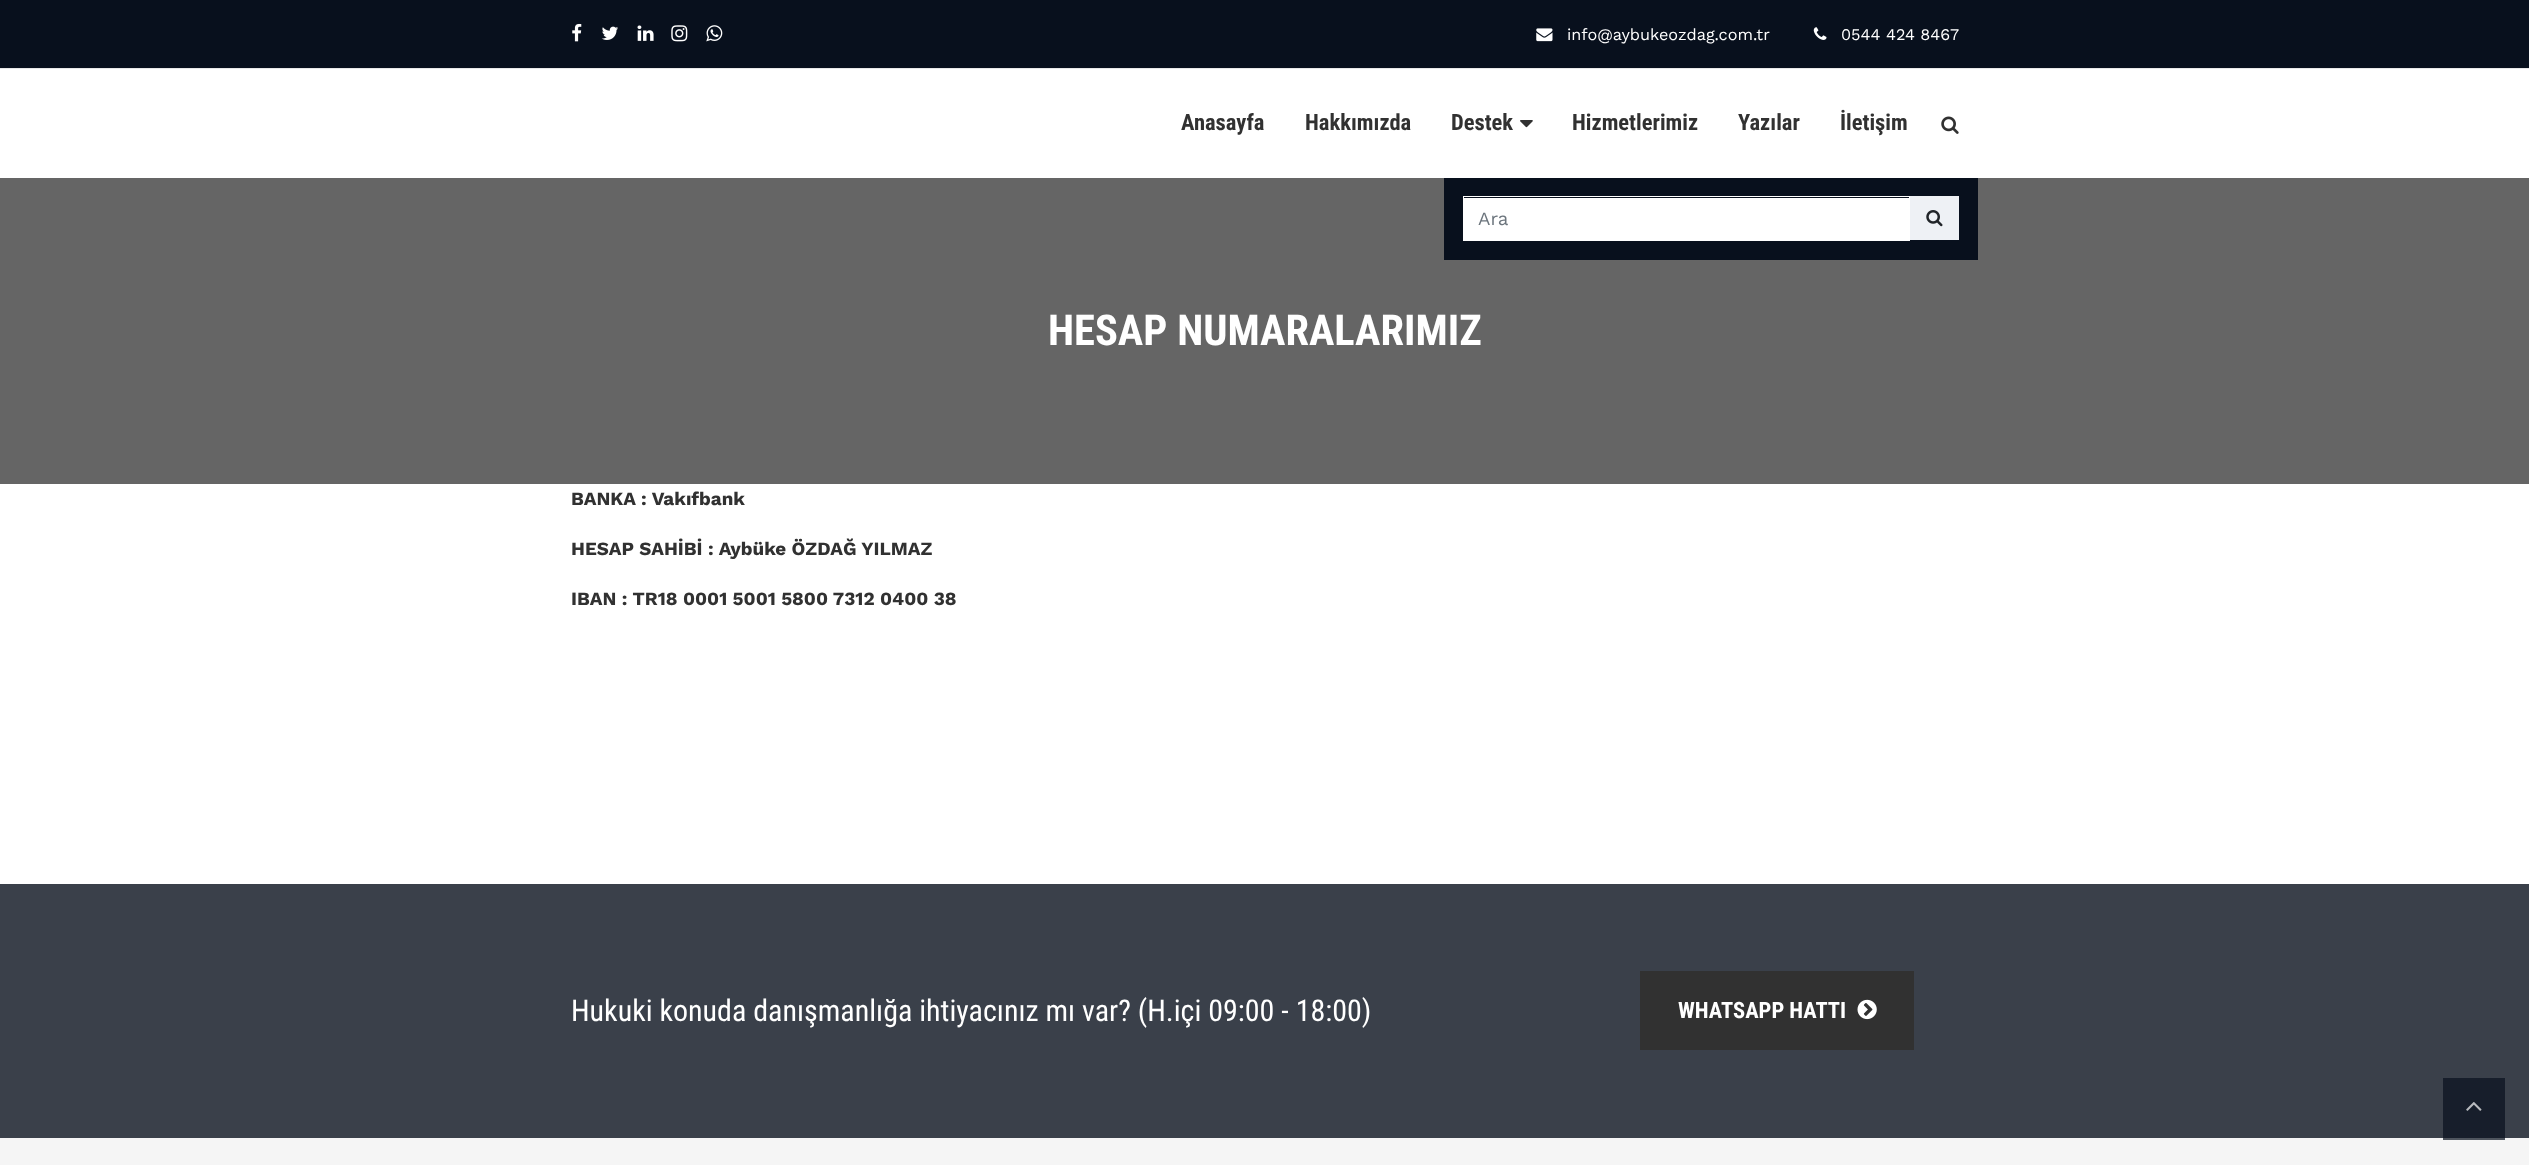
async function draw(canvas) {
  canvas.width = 2529;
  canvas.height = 1165;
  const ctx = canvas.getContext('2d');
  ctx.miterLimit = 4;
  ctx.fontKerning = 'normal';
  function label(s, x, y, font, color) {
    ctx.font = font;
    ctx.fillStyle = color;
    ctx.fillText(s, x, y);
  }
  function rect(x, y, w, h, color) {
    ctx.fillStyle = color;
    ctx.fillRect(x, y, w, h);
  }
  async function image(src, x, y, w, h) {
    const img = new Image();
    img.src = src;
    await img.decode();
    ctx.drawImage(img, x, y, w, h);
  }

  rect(0, 0, 2529, 1165, '#fff');
  rect(0, 0, 2529, 68, '#08101d');
  rect(0, 68, 2529, 1, '#e8e8e8');
  await image('assets/img1.png', 572, 23, 10, 19);
  await image('assets/img2.png', 601, 26, 17, 14);
  await image('assets/img3.png', 637, 25, 17, 16);
  await image('assets/img4.png', 671, 25, 17, 17);
  await image('assets/img5.png', 706, 25, 17, 17);
  await image('assets/img6.png', 1536, 28, 17, 14);
  label('info@aybukeozdag.com.tr', 1567, 40, '16.25px Work Sans', '#fff');
  await image('assets/img7.png', 1813, 27, 14, 13);
  label('0544 424 8467', 1841, 40, '16.25px Work Sans', '#fff');
  label('Anasayfa', 1181, 130, 'bold 22.5px Roboto Condensed', '#313131');
  label('Hakkımızda', 1305, 130, 'bold 22.5px Roboto Condensed', '#313131');
  label('Destek', 1451, 130, 'bold 22.5px Roboto Condensed', '#313131');
  await image('assets/img8.png', 1520, 120, 13, 8);
  label('Hizmetlerimiz', 1572, 130, 'bold 22.5px Roboto Condensed', '#313131');
  label('Yazılar', 1738, 130, 'bold 22.5px Roboto Condensed', '#313131');
  label('İletişim', 1840, 130, 'bold 22.5px Roboto Condensed', '#313131');
  await image('assets/img9.png', 1941, 116, 18, 18);
  rect(0, 178, 2529, 306, '#656565');
  rect(1444, 178, 534, 82, '#08101d');
  rect(1464, 198, 445, 42, '#fff');
  ctx.strokeStyle = '#fff';
  ctx.strokeRect(1463.5, 196.5, 446, 44);
  label('Ara', 1478, 225, '18.75px Work Sans', '#6c757d');
  rect(1910, 196, 49, 44, '#eef1f5');
  await image('assets/img10.png', 1926, 210, 17, 17);
  label('HESAP NUMARALARIMIZ', 1048, 345, 'bold 42.5px Roboto Condensed', '#fff');
  label('BANKA : Vakıfbank', 571, 505, 'bold 18.75px Work Sans', '#313131');
  label('HESAP SAHİBİ : Aybüke ÖZDAĞ YILMAZ', 571, 555, 'bold 18.75px Work Sans', '#313131');
  label('IBAN : TR18 0001 5001 5800 7312 0400 38', 571, 605, 'bold 18.75px Work Sans', '#313131');
  rect(0, 884, 2529, 254, '#3a404a');
  rect(2443, 1078, 62, 60, '#171e2b');
  label('Hukuki konuda danışmanlığa ihtiyacınız mı var? (H.içi 09:00 - 18:00)', 571, 1021, '30px Roboto Condensed', '#fff');
  rect(1640, 971, 274, 79, '#313131');
  label('WHATSAPP HATTI', 1678, 1018, 'bold 22.5px Roboto Condensed', '#fff');
  await image('assets/img11.png', 1857, 999, 20, 21);
  await image('assets/img12.png', 2466, 1102, 16, 9);
  rect(0, 1138, 2529, 27, '#f5f5f5');
  rect(2443, 1138, 62, 2, '#4f555e');
}

draw(document.querySelector('canvas'));
